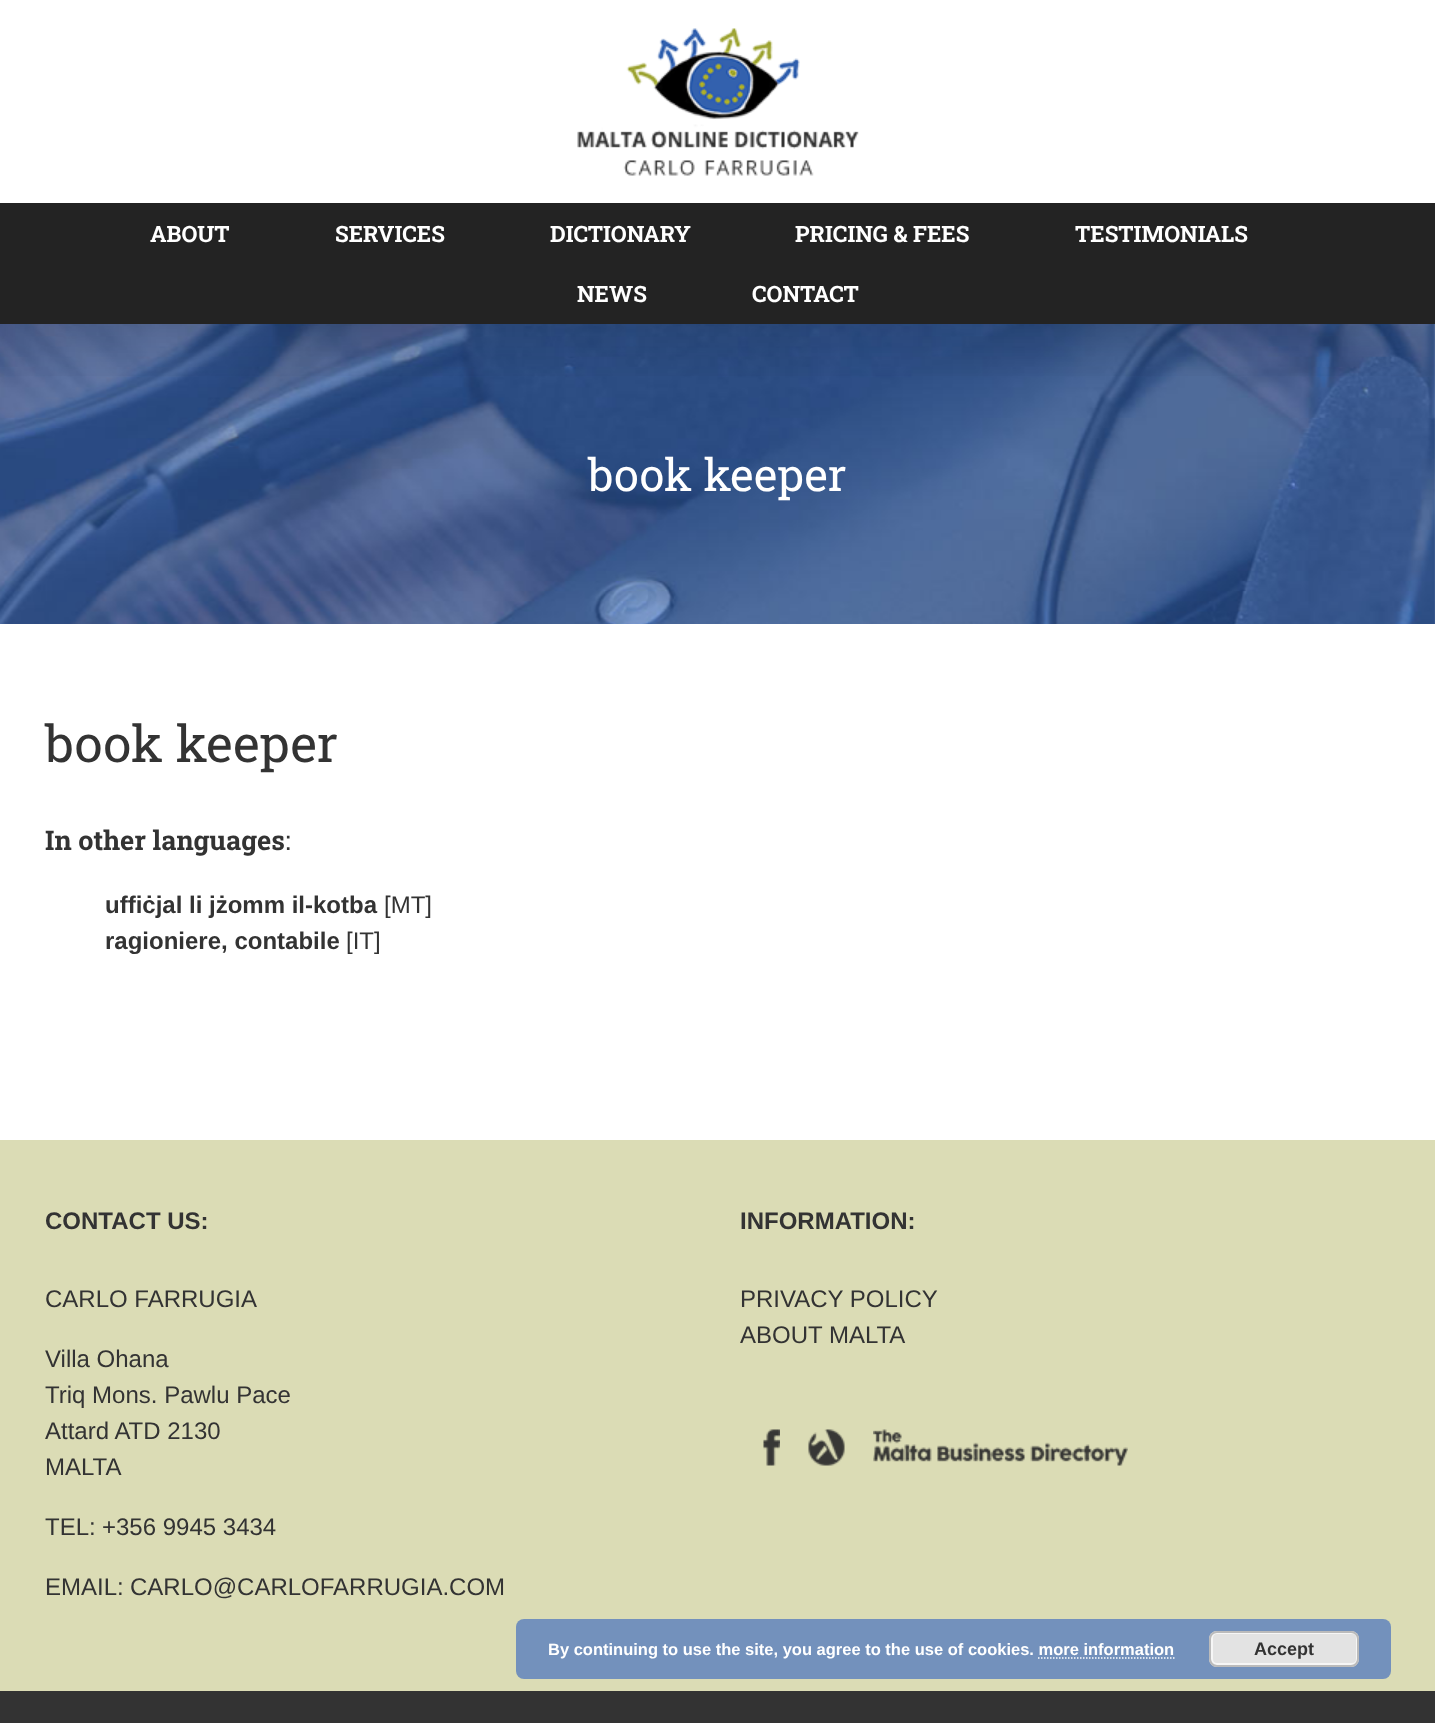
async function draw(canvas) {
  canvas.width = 1435;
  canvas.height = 1723;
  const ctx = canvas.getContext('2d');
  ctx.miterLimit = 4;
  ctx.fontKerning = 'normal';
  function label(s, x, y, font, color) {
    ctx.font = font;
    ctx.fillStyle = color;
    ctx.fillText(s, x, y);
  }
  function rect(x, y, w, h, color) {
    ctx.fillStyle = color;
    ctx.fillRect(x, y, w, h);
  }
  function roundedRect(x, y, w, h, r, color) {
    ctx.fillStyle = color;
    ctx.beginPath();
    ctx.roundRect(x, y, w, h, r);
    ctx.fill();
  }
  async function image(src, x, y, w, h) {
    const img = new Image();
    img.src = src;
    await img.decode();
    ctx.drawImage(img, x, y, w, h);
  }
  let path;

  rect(0, 0, 1435, 1723, '#fff');
  await image('assets/img2.png', 0, 324, 1435, 300);
  ctx.save();
  ctx.beginPath();
  ctx.rect(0, 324, 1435, 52);
  ctx.clip();
  ctx.fillStyle = '#00000024';
  ctx.filter = 'blur(37.5px)';
  ctx.beginPath();
  ctx.rect(3, 18, 1430, 318);
  ctx.fill();
  ctx.filter = 'none';
  ctx.restore();
  await image('assets/img1.png', 577, 28, 282, 148);
  rect(0, 203, 1435, 121, '#232323');
  label('ABOUT', 150, 242, 'bold 22.5px Roboto Slab', '#fff');
  label('SERVICES', 335, 242, 'bold 22.5px Roboto Slab', '#fff');
  label('DICTIONARY', 550, 242, 'bold 22.5px Roboto Slab', '#fff');
  label('PRICING & FEES', 795, 242, 'bold 22.5px Roboto Slab', '#fff');
  label('TESTIMONIALS', 1075, 242, 'bold 22.5px Roboto Slab', '#fff');
  label('NEWS', 577, 302, 'bold 22.5px Roboto Slab', '#fff');
  label('CONTACT', 752, 302, 'bold 22.5px Roboto Slab', '#fff');
  label('book keeper', 588, 491, '45px Roboto Slab', '#fff');
  label('book keeper', 45, 762, '51px Roboto Slab', '#333');
  label('In other languages', 45, 850, 'bold 27px Roboto Slab', '#333');
  label(':', 285, 850, '27px Roboto Slab', '#333');
  label('uffiċjal li jżomm il-kotba', 105, 913, 'bold 24px Liberation Sans', '#333');
  label('[MT]', 384, 913, '24px Liberation Sans', '#333');
  label('ragioniere, contabile', 105, 949, 'bold 24px Liberation Sans', '#333');
  label('[IT]', 346, 949, '24px Liberation Sans', '#333');
  rect(0, 1140, 1435, 551, '#dbdcb5');
  label('CONTACT US:', 45, 1229, 'bold 24px Liberation Sans', '#333');
  label('CARLO FARRUGIA', 45, 1307, '24px Liberation Sans', '#333');
  label('Villa Ohana', 45, 1367, '24px Liberation Sans', '#333');
  label('Triq Mons. Pawlu Pace', 45, 1403, '24px Liberation Sans', '#333');
  label('Attard ATD 2130', 45, 1439, '24px Liberation Sans', '#333');
  label('MALTA', 45, 1475, '24px Liberation Sans', '#333');
  label('TEL:', 45, 1535, '24px Liberation Sans', '#333');
  label('+356 9945 3434', 102, 1535, '24px Liberation Sans', '#333');
  label('EMAIL:', 45, 1595, '24px Liberation Sans', '#333');
  label('CARLO@CARLOFARRUGIA.COM', 130, 1595, '24px Liberation Sans', '#333');
  label('INFORMATION:', 740, 1229, 'bold 24px Liberation Sans', '#333');
  label('PRIVACY POLICY', 740, 1307, '24px Liberation Sans', '#333');
  label('ABOUT MALTA', 740, 1343, '24px Liberation Sans', '#333');
  await image('assets/img3.png', 763, 1429, 17, 37);
  await image('assets/img4.png', 808, 1429, 37, 37);
  await image('assets/img5.png', 873, 1429, 255, 37);
  rect(0, 1691, 1435, 32, '#333');
  roundedRect(516, 1619, 875, 60, 8, '#7391bc');
  label('By continuing to use the site, you agree to the use of cookies. more information', 548, 1655, 'bold 16.5px Liberation Sans', '#fff');
  roundedRect(1209, 1631, 150, 36, 8, '#e3e3e3');
  ctx.beginPath();
  ctx.roundRect(1212, 1633, 145, 31, 5);
  ctx.strokeStyle = '#f6f6f6';
  ctx.lineWidth = 2;
  ctx.stroke();
  ctx.beginPath();
  ctx.roundRect(1210, 1632, 148, 34, 7);
  ctx.strokeStyle = '#bbb';
  ctx.stroke();
  label('Accept', 1254, 1655, 'bold 18px Liberation Sans', '#333');
  path = new Path2D('M1038 1658H1174.5');
  ctx.strokeStyle = '#fff';
  ctx.lineWidth = 1.5;
  ctx.setLineDash([1.5, 1.5]);
  ctx.stroke(path);
}

draw(document.querySelector('canvas'));
